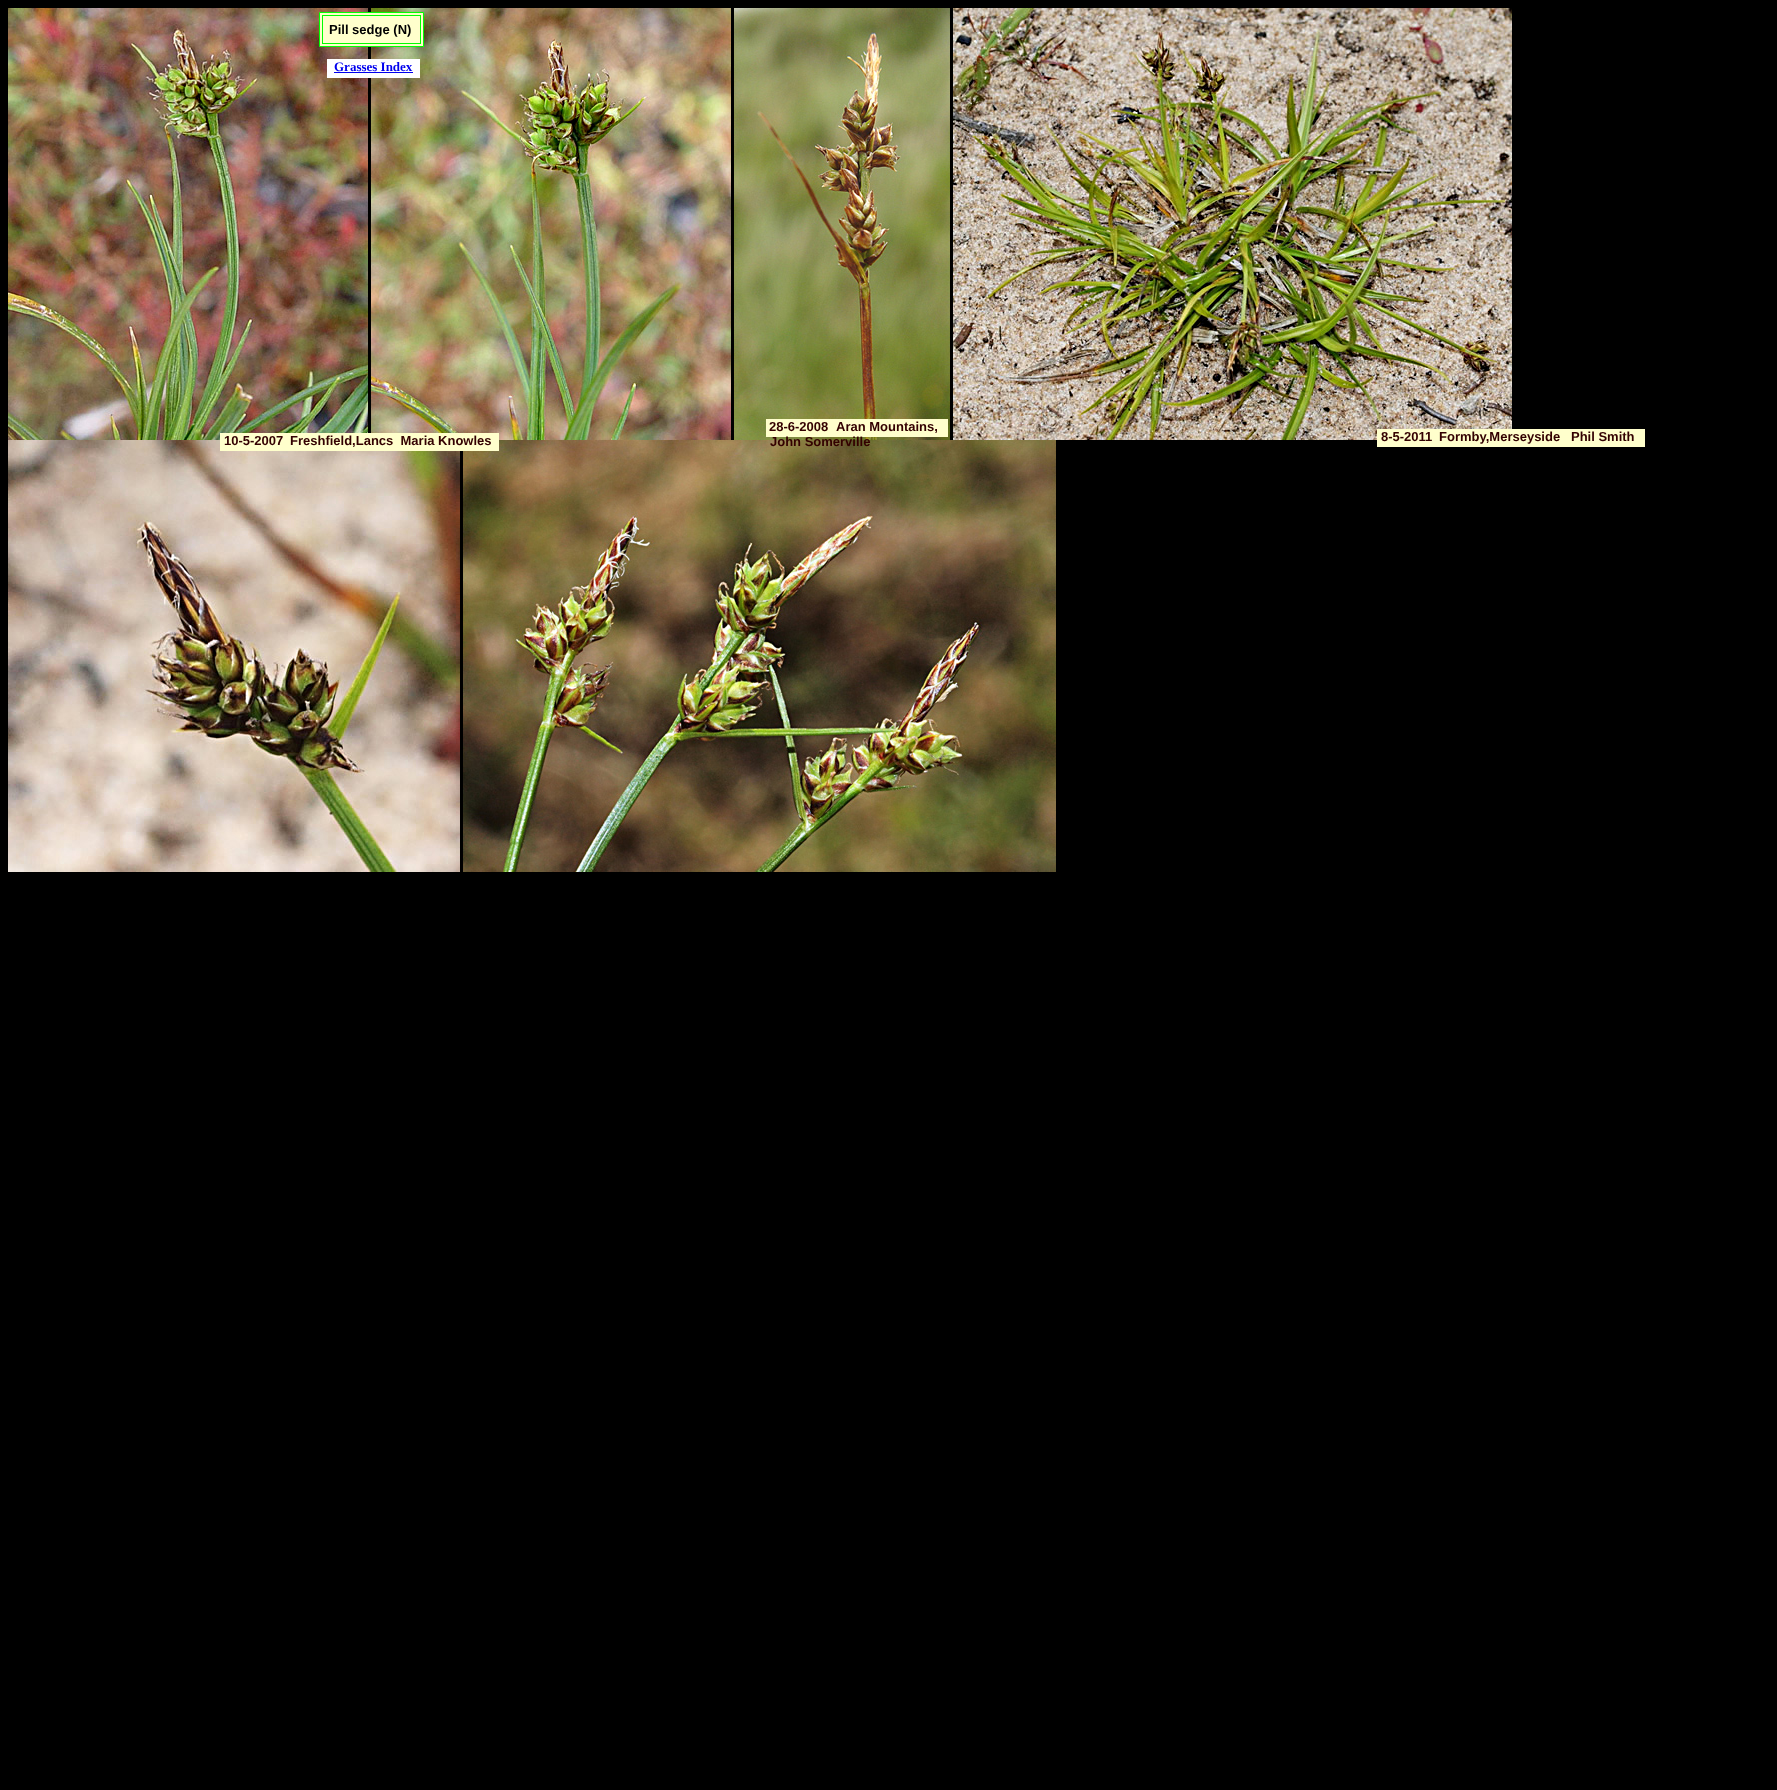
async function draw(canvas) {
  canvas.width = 1777;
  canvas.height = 1790;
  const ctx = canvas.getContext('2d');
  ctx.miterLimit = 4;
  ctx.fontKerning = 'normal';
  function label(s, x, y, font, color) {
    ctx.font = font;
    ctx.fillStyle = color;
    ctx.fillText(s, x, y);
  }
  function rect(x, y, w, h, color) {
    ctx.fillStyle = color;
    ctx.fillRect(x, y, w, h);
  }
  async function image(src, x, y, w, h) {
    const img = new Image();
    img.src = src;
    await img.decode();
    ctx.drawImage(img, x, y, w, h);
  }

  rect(0, 0, 1777, 1790, '#000');
  await image('assets/img1.png', 8, 8, 360, 432);
  await image('assets/img2.png', 371, 8, 360, 432);
  ctx.fillStyle = '#ffc';
  ctx.beginPath();
  ctx.rect(319.5, 12.5, 104, 34);
  ctx.fill();
  ctx.strokeStyle = '#0f0';
  ctx.stroke();
  ctx.strokeRect(322.5, 15.5, 98, 28);
  label('Pill sedge (N)', 329, 34, 'bold 13px Liberation Sans', '#000');
  await image('assets/img3.png', 734, 8, 216, 432);
  await image('assets/img4.png', 953, 8, 559, 432);
  rect(327, 59, 93, 19, '#fff');
  label('Grasses Index', 334, 71, 'bold 13px Liberation Serif', '#00e');
  rect(334, 72, 79, 1, '#00e');
  await image('assets/img5.png', 8, 440, 452, 432);
  await image('assets/img6.png', 463, 440, 593, 432);
  rect(220, 433, 279, 18, '#ffc');
  label('10-5-2007', 224, 445, 'bold 13px Liberation Sans', '#300');
  label('Freshfield,Lancs  Maria Knowles', 290, 445, 'bold 13px Liberation Sans', '#300');
  rect(766, 419, 182, 18, '#ffc');
  label('28-6-2008', 769, 431, 'bold 13px Liberation Sans', '#300');
  label('Aran Mountains,', 836, 431, 'bold 13px Liberation Sans', '#300');
  label('John Somerville', 770, 446, 'bold 13px Liberation Sans', '#300');
  rect(1377, 429, 268, 18, '#ffc');
  label('8-5-2011', 1381, 441, 'bold 13px Liberation Sans', '#300');
  label('Formby,Merseyside   Phil Smith', 1439, 441, 'bold 13px Liberation Sans', '#300');
}

draw(document.querySelector('canvas'));
